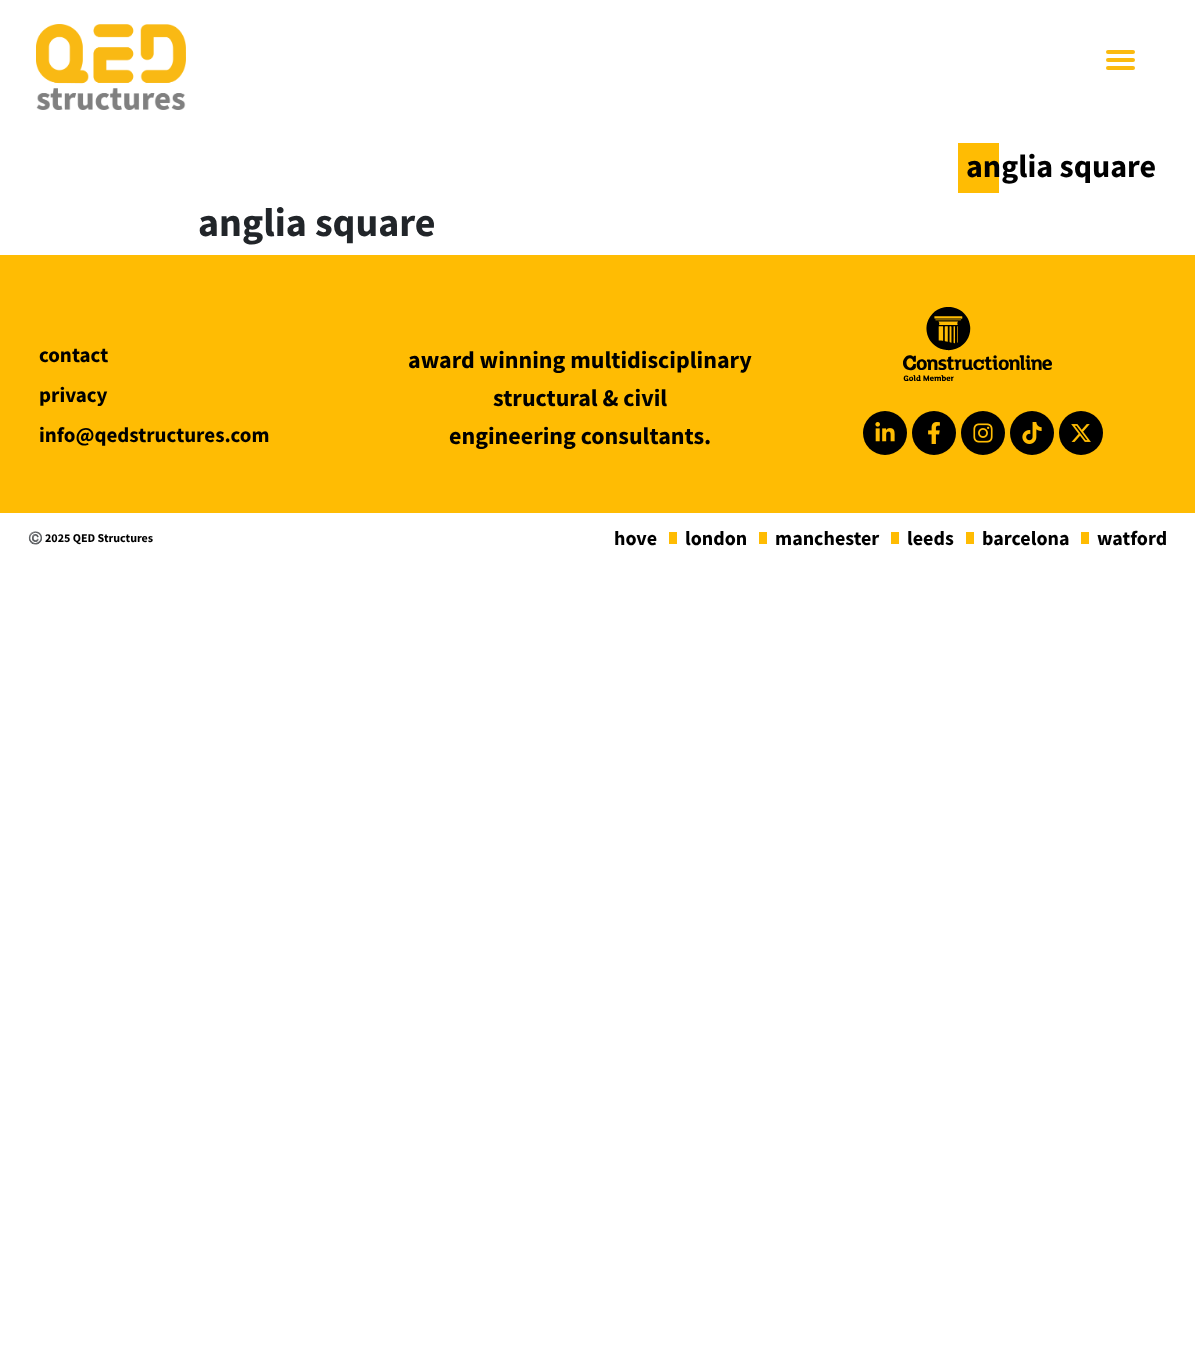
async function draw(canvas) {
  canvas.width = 1195;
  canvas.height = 1346;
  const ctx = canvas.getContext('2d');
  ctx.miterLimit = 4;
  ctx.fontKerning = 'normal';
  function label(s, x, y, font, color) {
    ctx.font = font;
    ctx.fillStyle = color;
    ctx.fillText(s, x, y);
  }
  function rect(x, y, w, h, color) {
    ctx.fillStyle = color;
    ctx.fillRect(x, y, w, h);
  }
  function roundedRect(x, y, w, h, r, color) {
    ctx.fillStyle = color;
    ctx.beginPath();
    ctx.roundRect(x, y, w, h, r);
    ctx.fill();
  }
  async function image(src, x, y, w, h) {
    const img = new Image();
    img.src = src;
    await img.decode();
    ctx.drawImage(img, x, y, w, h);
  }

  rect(0, 0, 1195, 1346, '#fff');
  await image('assets/img1.png', 36, 24, 150, 86);
  roundedRect(1106, 50, 29, 4, 2, '#fbba0f');
  roundedRect(1106, 58, 29, 4, 2, '#fbba0f');
  roundedRect(1106, 66, 29, 4, 2, '#fbba0f');
  rect(958, 143, 41, 50, '#ffbc03');
  label('anglia square', 966, 177, 'bold 32px Source Sans Pro', '#000');
  label('anglia square', 198, 236, 'bold 40px Source Sans Pro', '#212529');
  rect(0, 255, 1195, 258, '#ffbc03');
  label('contact', 39, 362, 'bold 21px Source Sans Pro', '#000');
  label('privacy', 39, 402, 'bold 21px Source Sans Pro', '#000');
  label('info@qedstructures.com', 39, 442, 'bold 21px Source Sans Pro', '#000');
  label('award winning multidisciplinary', 408, 368, 'bold 24px Source Sans Pro', '#000');
  label('structural & civil', 493, 406, 'bold 24px Source Sans Pro', '#000');
  label('engineering consultants.', 449, 444, 'bold 24px Source Sans Pro', '#000');
  await image('assets/img2.png', 903, 307, 149, 74);
  ctx.beginPath();
  ctx.arc(885, 433, 22, 0, 2 * Math.PI);
  ctx.fill();
  await image('assets/img3.png', 875, 422, 20, 20);
  ctx.beginPath();
  ctx.arc(934, 433, 22, 0, 2 * Math.PI);
  ctx.fill();
  await image('assets/img4.png', 928, 422, 12, 22);
  ctx.beginPath();
  ctx.arc(983, 433, 22, 0, 2 * Math.PI);
  ctx.fill();
  await image('assets/img5.png', 973, 423, 20, 20);
  ctx.beginPath();
  ctx.arc(1032, 433, 22, 0, 2 * Math.PI);
  ctx.fill();
  await image('assets/img6.png', 1022, 422, 20, 22);
  ctx.beginPath();
  ctx.arc(1081, 433, 22, 0, 2 * Math.PI);
  ctx.fill();
  await image('assets/img7.png', 1071, 424, 20, 18);
  label('©️', 28, 542, 'bold 12px Noto Color Emoji', '#000');
  label('2025 QED Structures', 45, 542, 'bold 12px Source Sans Pro', '#000');
  label('hove', 614, 545, 'bold 20px Source Sans Pro', '#000');
  rect(669, 532, 8, 12, '#ffbc03');
  label('london', 685, 545, 'bold 20px Source Sans Pro', '#000');
  rect(759, 532, 8, 12, '#ffbc03');
  label('manchester', 775, 545, 'bold 20px Source Sans Pro', '#000');
  rect(891, 532, 8, 12, '#ffbc03');
  label('leeds', 907, 545, 'bold 20px Source Sans Pro', '#000');
  rect(966, 532, 8, 12, '#ffbc03');
  label('barcelona', 982, 545, 'bold 20px Source Sans Pro', '#000');
  rect(1081, 532, 8, 12, '#ffbc03');
  label('watford', 1097, 545, 'bold 20px Source Sans Pro', '#000');
}

draw(document.querySelector('canvas'));
